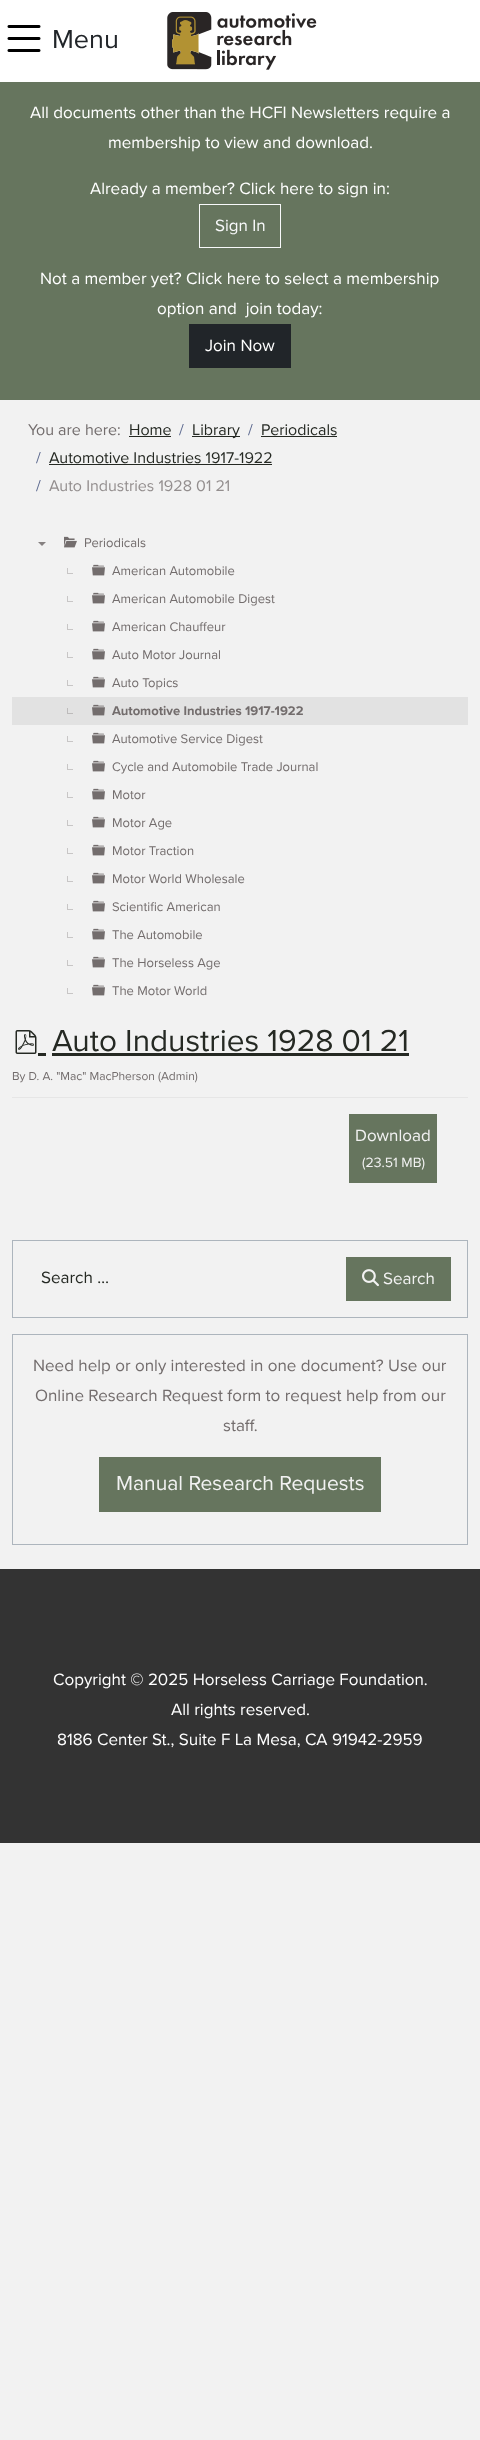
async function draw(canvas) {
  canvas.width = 480;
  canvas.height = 2440;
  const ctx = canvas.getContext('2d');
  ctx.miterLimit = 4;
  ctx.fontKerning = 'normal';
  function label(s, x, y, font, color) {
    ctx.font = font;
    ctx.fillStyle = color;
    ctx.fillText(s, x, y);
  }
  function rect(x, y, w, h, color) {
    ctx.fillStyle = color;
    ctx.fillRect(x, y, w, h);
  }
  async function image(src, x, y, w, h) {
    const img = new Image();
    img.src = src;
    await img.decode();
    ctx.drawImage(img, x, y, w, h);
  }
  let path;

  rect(0, 0, 480, 2440, '#f2f2f2');
  rect(0, 0, 480, 82, '#fff');
  await image('assets/img1.png', 7, 25, 34, 27);
  label('Menu', 52, 48, '27px Proxima Nova', '#212529');
  await image('assets/img2.png', 167, 12, 150, 58);
  rect(0, 82, 480, 318, '#66755e');
  label('All documents other than the HCFI Newsletters require a', 30, 118, '17px Proxima Nova', '#fff');
  label('membership to view and download.', 108, 148, '17px Proxima Nova', '#fff');
  label('Already a member? Click here to sign in:', 90, 194, '17px Proxima Nova', '#fff');
  ctx.strokeStyle = '#f8f9fa';
  ctx.strokeRect(199.5, 204.5, 81, 43);
  label('Sign In', 215, 231, '17px Proxima Nova', '#f8f9fa');
  label('Not a member yet? Click here to select a membership', 40, 284, '17px Proxima Nova', '#fff');
  label('option and  join today:', 157, 314, '17px Proxima Nova', '#fff');
  rect(189, 324, 102, 44, '#212529');
  label('Join Now', 205, 351, '17px Proxima Nova', '#fff');
  label('You are here:', 28, 435, '16px Proxima Nova', '#736d6d');
  label('Home', 129, 435, '16px Proxima Nova', '#252923');
  rect(129, 436, 42, 1, '#252923');
  label('/', 179, 435, '16px Proxima Nova', '#58658c');
  rect(192, 436, 48, 1, '#252923');
  label('Library', 192, 435, '16px Proxima Nova', '#252923');
  label('/', 248, 435, '16px Proxima Nova', '#58658c');
  label('Periodicals', 261, 435, '16px Proxima Nova', '#252923');
  rect(261, 436, 76, 1, '#252923');
  label('/', 36, 463, '16px Proxima Nova', '#58658c');
  label('Automotive Industries 1917-1922', 49, 463, '16px Proxima Nova', '#252923');
  rect(49, 464, 223, 1, '#252923');
  label('/', 36, 491, '16px Proxima Nova', '#58658c');
  label('Auto Industries 1928 01 21', 49, 491, '16px Proxima Nova', '#938e8e');
  ctx.fillStyle = '#868181';
  path = new Path2D('M38 542H46L42 546Z');
  ctx.fill(path);
  await image('assets/img3.png', 64, 536, 13, 12);
  label('Periodicals', 84, 547, '13px Proxima Nova', '#736d6d');
  rect(67, 573, 6, 1, '#c8c6c6');
  rect(67, 568, 1, 6, '#c8c6c6');
  await image('assets/img4.png', 92, 564, 13, 12);
  label('American Automobile', 112, 575, '13px Proxima Nova', '#736d6d');
  rect(67, 601, 6, 1, '#c8c6c6');
  rect(67, 596, 1, 6, '#c8c6c6');
  await image('assets/img4.png', 92, 592, 13, 12);
  label('American Automobile Digest', 112, 603, '13px Proxima Nova', '#736d6d');
  rect(67, 629, 6, 1, '#c8c6c6');
  rect(67, 624, 1, 6, '#c8c6c6');
  await image('assets/img4.png', 92, 620, 13, 12);
  label('American Chauffeur', 112, 631, '13px Proxima Nova', '#736d6d');
  rect(67, 657, 6, 1, '#c8c6c6');
  rect(67, 652, 1, 6, '#c8c6c6');
  await image('assets/img4.png', 92, 648, 13, 12);
  label('Auto Motor Journal', 112, 659, '13px Proxima Nova', '#736d6d');
  rect(67, 685, 6, 1, '#c8c6c6');
  rect(67, 680, 1, 6, '#c8c6c6');
  await image('assets/img4.png', 92, 676, 13, 12);
  label('Auto Topics', 112, 687, '13px Proxima Nova', '#736d6d');
  rect(12, 697, 456, 28, '#e2e2e2');
  rect(67, 713, 6, 1, '#bdbbbb');
  rect(67, 708, 1, 6, '#bdbbbb');
  await image('assets/img5.png', 92, 704, 13, 12);
  label('Automotive Industries 1917-1922', 112, 715, 'bold 13px Proxima Nova', '#736d6d');
  rect(67, 741, 6, 1, '#c8c6c6');
  rect(67, 736, 1, 6, '#c8c6c6');
  await image('assets/img4.png', 92, 732, 13, 12);
  label('Automotive Service Digest', 112, 743, '13px Proxima Nova', '#736d6d');
  rect(67, 769, 6, 1, '#c8c6c6');
  rect(67, 764, 1, 6, '#c8c6c6');
  await image('assets/img4.png', 92, 760, 13, 12);
  label('Cycle and Automobile Trade Journal', 112, 771, '13px Proxima Nova', '#736d6d');
  rect(67, 797, 6, 1, '#c8c6c6');
  rect(67, 792, 1, 6, '#c8c6c6');
  await image('assets/img4.png', 92, 788, 13, 12);
  label('Motor', 112, 799, '13px Proxima Nova', '#736d6d');
  rect(67, 825, 6, 1, '#c8c6c6');
  rect(67, 820, 1, 6, '#c8c6c6');
  await image('assets/img4.png', 92, 816, 13, 12);
  label('Motor Age', 112, 827, '13px Proxima Nova', '#736d6d');
  rect(67, 853, 6, 1, '#c8c6c6');
  rect(67, 848, 1, 6, '#c8c6c6');
  await image('assets/img4.png', 92, 844, 13, 12);
  label('Motor Traction', 112, 855, '13px Proxima Nova', '#736d6d');
  rect(67, 881, 6, 1, '#c8c6c6');
  rect(67, 876, 1, 6, '#c8c6c6');
  await image('assets/img4.png', 92, 872, 13, 12);
  label('Motor World Wholesale', 112, 883, '13px Proxima Nova', '#736d6d');
  rect(67, 909, 6, 1, '#c8c6c6');
  rect(67, 904, 1, 6, '#c8c6c6');
  await image('assets/img4.png', 92, 900, 13, 12);
  label('Scientific American', 112, 911, '13px Proxima Nova', '#736d6d');
  rect(67, 937, 6, 1, '#c8c6c6');
  rect(67, 932, 1, 6, '#c8c6c6');
  await image('assets/img4.png', 92, 928, 13, 12);
  label('The Automobile', 112, 939, '13px Proxima Nova', '#736d6d');
  rect(67, 965, 6, 1, '#c8c6c6');
  rect(67, 960, 1, 6, '#c8c6c6');
  await image('assets/img4.png', 92, 956, 13, 12);
  label('The Horseless Age', 112, 967, '13px Proxima Nova', '#736d6d');
  rect(67, 993, 6, 1, '#c8c6c6');
  rect(67, 988, 1, 6, '#c8c6c6');
  await image('assets/img4.png', 92, 984, 13, 12);
  label('The Motor World', 112, 995, '13px Proxima Nova', '#736d6d');
  await image('assets/img6.png', 15, 1030, 22, 24);
  rect(38, 1053, 8, 3, '#252923');
  label('Auto Industries 1928 01 21', 52, 1051, '31.5px Proxima Nova', '#252923');
  rect(52, 1053, 357, 3, '#252923');
  rect(12, 1097, 456, 1, '#e6e6e6');
  label('By D. A. "Mac" MacPherson (Admin)', 12, 1080, '12px Proxima Nova', '#736d6d');
  rect(349, 1114, 88, 69, '#66755e');
  label('Download', 355, 1141, '17px Proxima Nova', '#f2f2f2');
  label('(23.51 MB)', 362, 1167, '14px Proxima Nova', '#f2f2f2');
  ctx.strokeStyle = '#adb5bd';
  ctx.strokeRect(12.5, 1240.5, 455, 77);
  label('Search …', 41, 1283, '17px Proxima Nova', '#252923');
  rect(346, 1257, 105, 44, '#66755e');
  await image('assets/img7.png', 362, 1269, 17, 18);
  label('Search', 383, 1284, '17px Proxima Nova', '#f2f2f2');
  ctx.strokeRect(12.5, 1334.5, 455, 210);
  label('Need help or only interested in one document? Use our', 33, 1371, '17px Proxima Nova', '#736d6d');
  label('Online Research Request form to request help from our', 35, 1401, '17px Proxima Nova', '#736d6d');
  label('staff.', 223, 1431, '17px Proxima Nova', '#736d6d');
  rect(99, 1457, 282, 55, '#66755e');
  label('Manual Research Requests', 116, 1490, '21px Proxima Nova', '#f2f2f2');
  rect(0, 1569, 480, 274, '#333');
  label('Copyright © 2025 Horseless Carriage Foundation.', 53, 1685, '17px Proxima Nova', '#fff');
  label('All rights reserved.', 171, 1715, '17px Proxima Nova', '#fff');
  label('8186 Center St., Suite F La Mesa, CA 91942-2959', 57, 1745, '17px Proxima Nova', '#fff');
}

draw(document.querySelector('canvas'));
